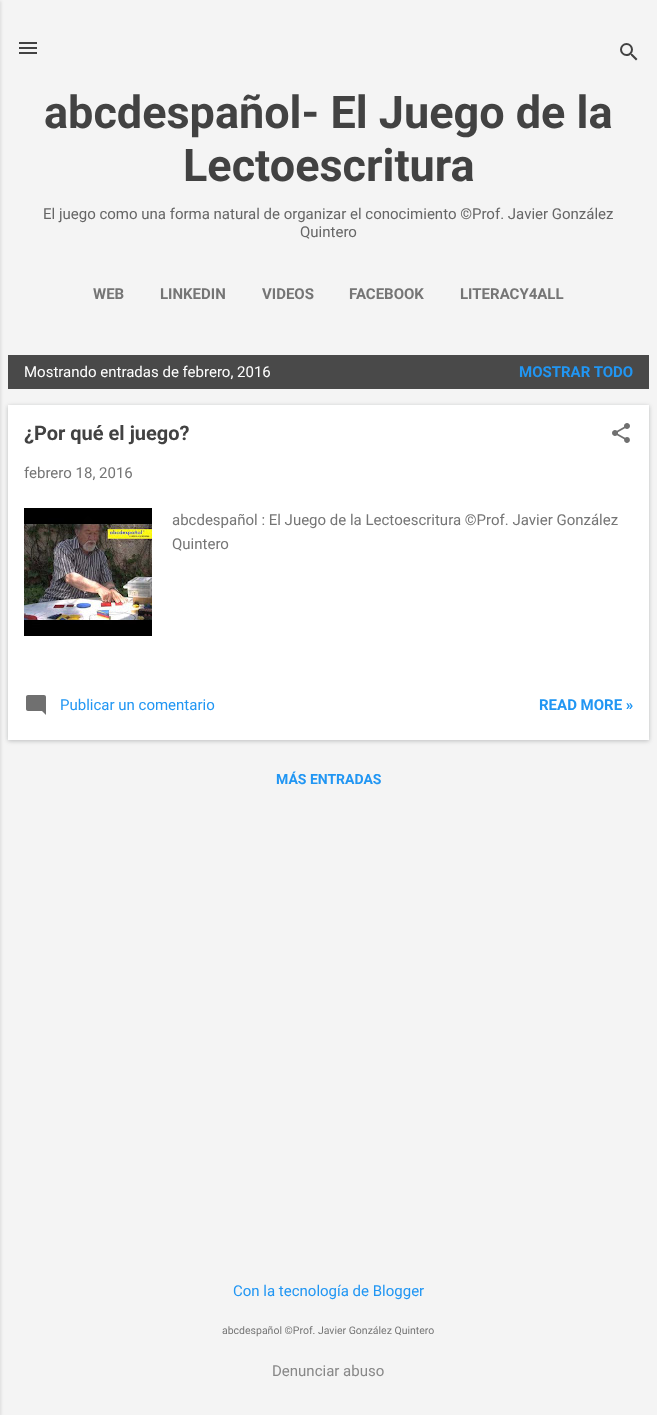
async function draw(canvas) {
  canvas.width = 657;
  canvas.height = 1415;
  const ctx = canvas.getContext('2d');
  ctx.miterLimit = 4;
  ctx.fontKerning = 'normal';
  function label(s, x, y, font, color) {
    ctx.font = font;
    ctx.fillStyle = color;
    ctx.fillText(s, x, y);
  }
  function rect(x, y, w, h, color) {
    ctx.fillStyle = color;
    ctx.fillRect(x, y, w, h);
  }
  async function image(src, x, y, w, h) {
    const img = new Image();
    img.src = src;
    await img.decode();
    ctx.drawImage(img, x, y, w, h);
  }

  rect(0, 0, 657, 1415, '#f4f4f4');
  ctx.fillStyle = '#0000001a';
  ctx.filter = 'blur(1.5px)';
  ctx.beginPath();
  ctx.rect(-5, 1, 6, 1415);
  ctx.fill();
  ctx.filter = 'none';
  await image('assets/img1.png', 19, 42, 18, 12);
  await image('assets/img2.png', 620, 43, 18, 18);
  label('abcdespañol- El Juego de la', 44, 128, 'bold 45px Roboto', '#424242');
  label('Lectoescritura', 183, 181, 'bold 45px Roboto', '#424242');
  label('El juego como una forma natural de organizar el conocimiento ©Prof. Javier González', 43, 219, '15px Roboto', '#666');
  label('Quintero', 300, 237, '15px Roboto', '#666');
  label('WEB', 93, 299, 'bold 15px Roboto', '#757575');
  label('LINKEDIN', 160, 299, 'bold 15px Roboto', '#757575');
  label('VIDEOS', 262, 299, 'bold 15px Roboto', '#757575');
  label('FACEBOOK', 349, 299, 'bold 15px Roboto', '#757575');
  label('LITERACY4ALL', 460, 299, 'bold 15px Roboto', '#757575');
  rect(8, 355, 641, 34, '#494949');
  label('Mostrando entradas de febrero, 2016', 24, 377, '15px Roboto', '#fff');
  label('MOSTRAR TODO', 519, 377, 'bold 15px Roboto', '#2196f3');
  ctx.fillStyle = '#3c40434d';
  ctx.filter = 'blur(2px)';
  ctx.beginPath();
  ctx.rect(8, 406, 641, 335);
  ctx.fill();
  ctx.filter = 'none';
  rect(8, 405, 641, 335, '#fff');
  label('¿Por qué el juego?', 24, 440, 'bold 20px Roboto', '#424242');
  await image('assets/img3.png', 612, 423, 18, 20);
  label('febrero 18, 2016', 24, 478, '15px Roboto', '#757575');
  await image('assets/img4.png', 24, 508, 128, 128);
  label('abcdespañol : El Juego de la Lectoescritura ©Prof. Javier González', 172, 525, '15px Roboto', '#757575');
  label('Quintero', 172, 549, '15px Roboto', '#757575');
  await image('assets/img5.png', 26, 695, 20, 20);
  label('Publicar un comentario', 60, 710, '15px Roboto', '#2196f3');
  label('READ MORE »', 539, 710, 'bold 15px Roboto', '#2196f3');
  label('MÁS ENTRADAS', 276, 784, 'bold 14px Roboto', '#2196f3');
  label('Con la tecnología de Blogger', 233, 1296, '15px Roboto', '#2196f3');
  label('abcdespañol ©Prof. Javier González Quintero', 222, 1334, '10.5px Roboto', '#757575');
  label('Denunciar abuso', 272, 1376, '15px Roboto', '#888');
}

draw(document.querySelector('canvas'));
